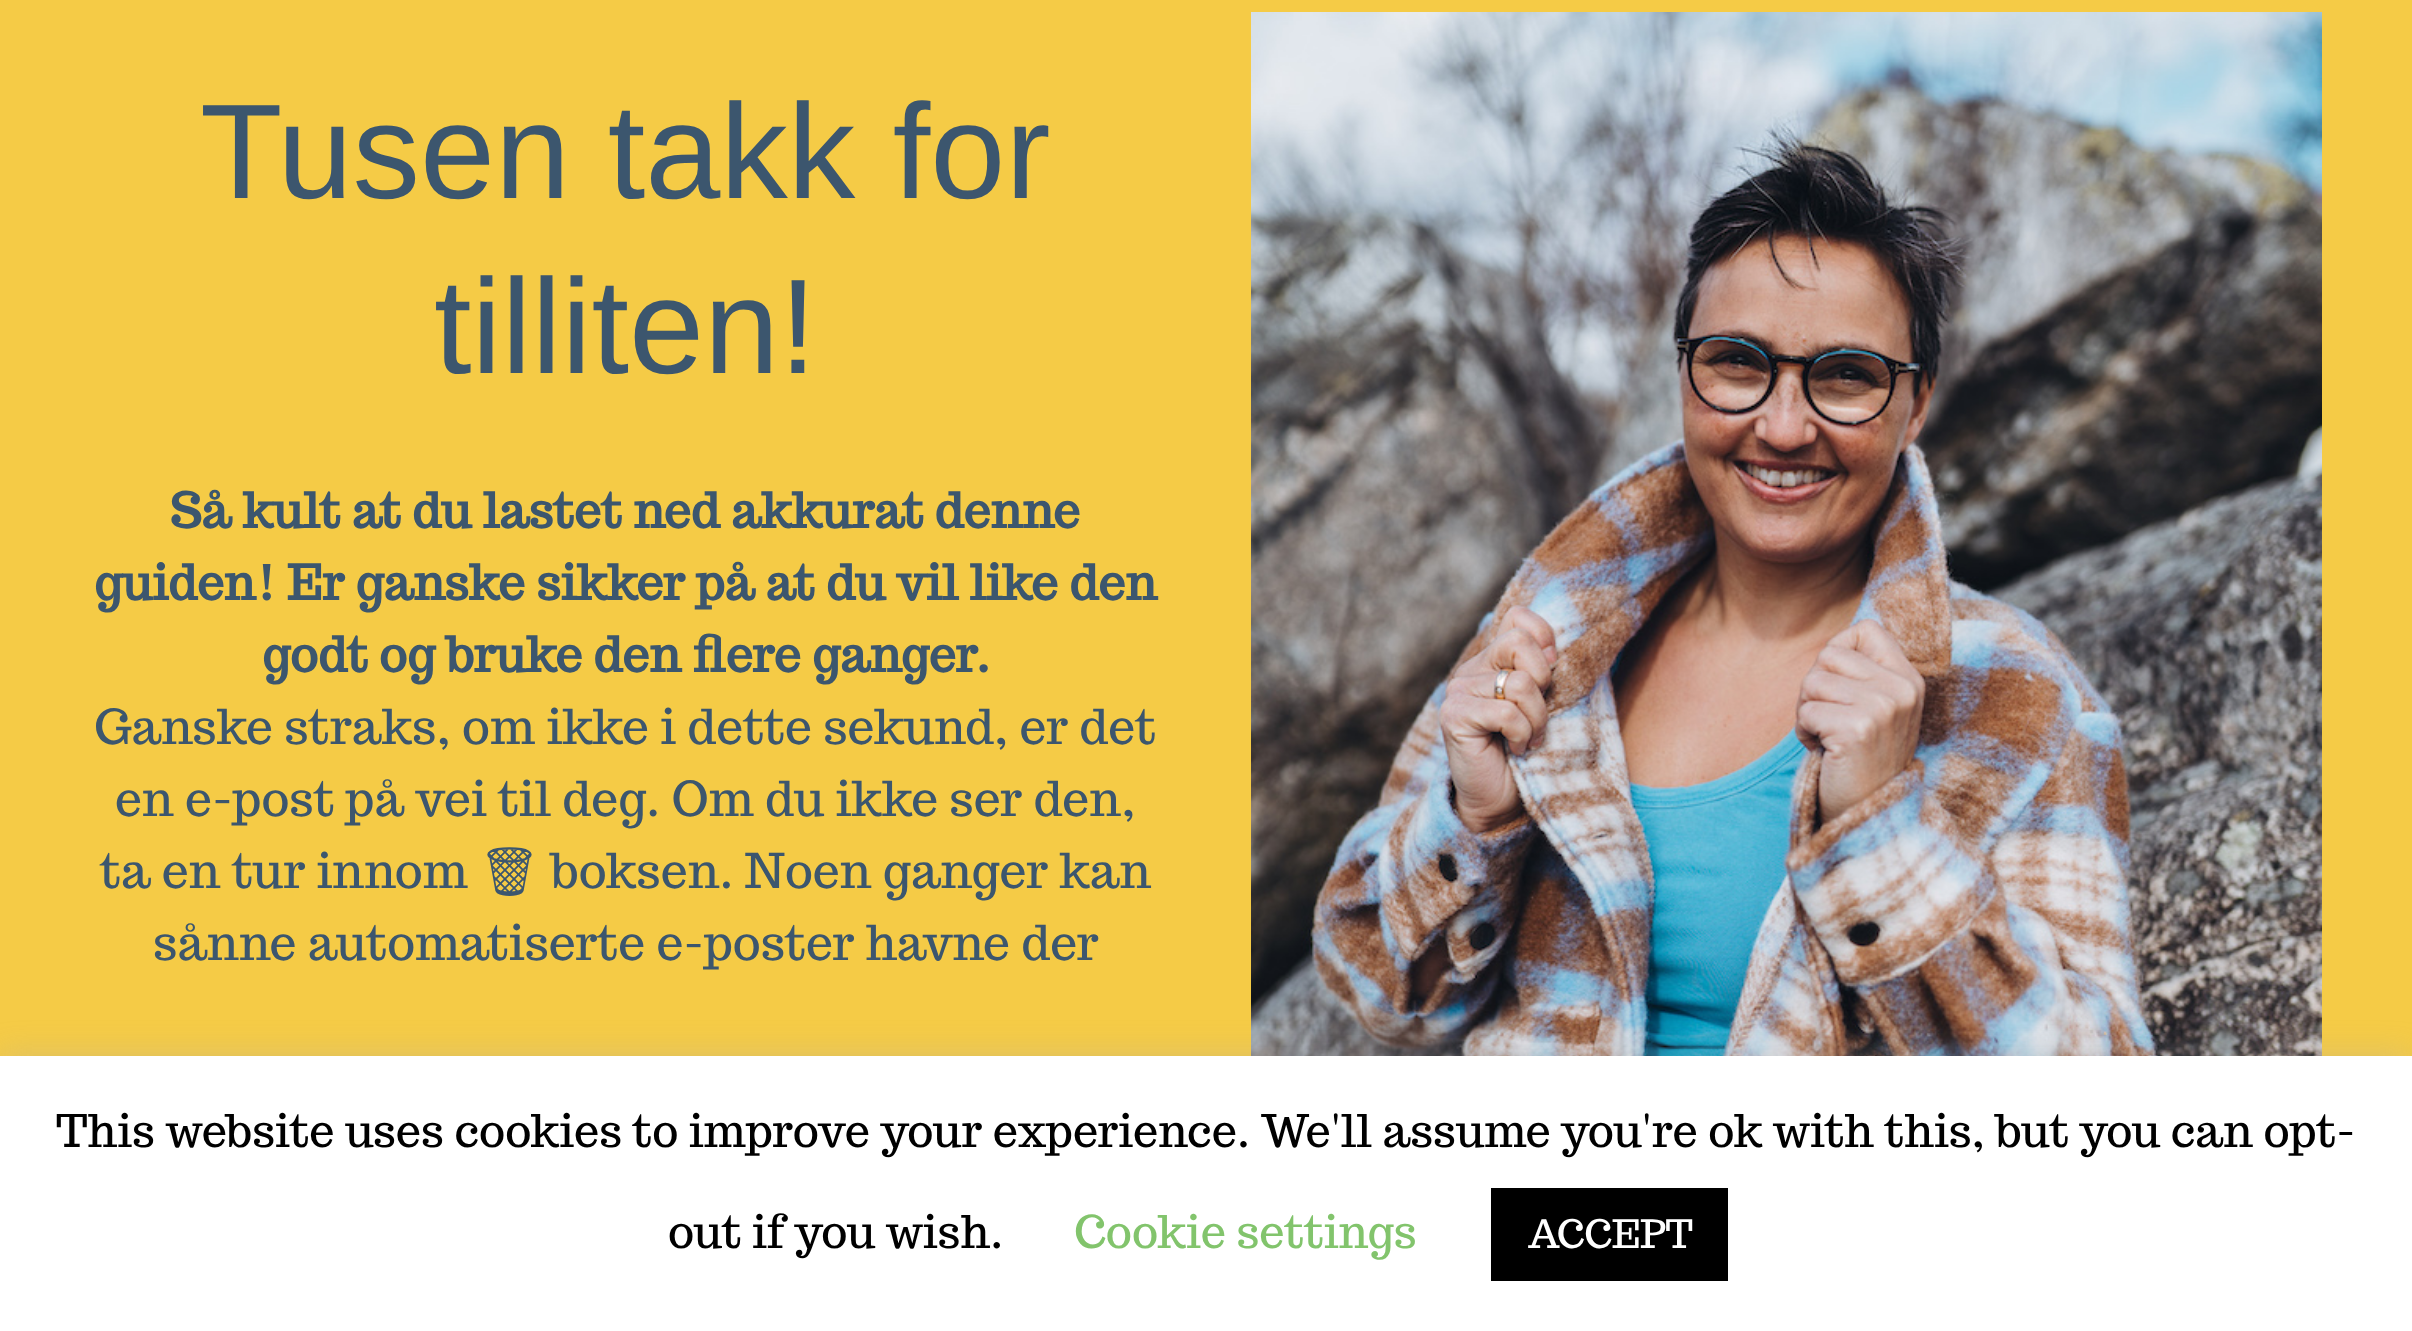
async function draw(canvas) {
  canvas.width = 2412;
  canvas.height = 1331;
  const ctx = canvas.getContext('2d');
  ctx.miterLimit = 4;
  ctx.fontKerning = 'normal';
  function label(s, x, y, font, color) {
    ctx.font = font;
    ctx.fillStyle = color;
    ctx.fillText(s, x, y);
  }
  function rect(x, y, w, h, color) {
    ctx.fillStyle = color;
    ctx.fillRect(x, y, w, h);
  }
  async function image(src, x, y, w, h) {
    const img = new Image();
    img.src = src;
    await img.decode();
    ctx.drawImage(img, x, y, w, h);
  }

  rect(0, 0, 2412, 1331, '#f5cb46');
  label('Tusen takk for', 200, 198, '135px Liberation Sans', '#3c566e');
  label('tilliten!', 434, 373, '135px Liberation Sans', '#3c566e');
  label('Så kult at du lastet ned akkurat denne', 170, 528, 'bold 48px Trocchi', '#3c566e');
  label('guiden! Er ganske sikker på at du vil like den', 94, 600, 'bold 48px Trocchi', '#3c566e');
  label('godt og bruke den flere ganger.', 262, 672, 'bold 48px Trocchi', '#3c566e');
  label('Ganske straks, om ikke i dette sekund, er det', 94, 744, '48px Trocchi', '#3c566e');
  label('en e-post på vei til deg. Om du ikke ser den,', 115, 816, '48px Trocchi', '#3c566e');
  label('ta en tur innom', 100, 888, '48px Trocchi', '#3c566e');
  label('🗑', 479, 888, '48px Noto Emoji', '#3c566e');
  label('boksen. Noen ganger kan', 551, 888, '48px Trocchi', '#3c566e');
  label('sånne automatiserte e-poster havne der', 153, 960, '48px Trocchi', '#3c566e');
  await image('assets/img1.png', 1251, 12, 1071, 1044);
  ctx.fillStyle = '#acabab4d';
  ctx.filter = 'blur(15px)';
  ctx.beginPath();
  ctx.rect(0, 1053, 2412, 276);
  ctx.fill();
  ctx.filter = 'none';
  rect(0, 1056, 2412, 275, '#fff');
  label('This website uses cookies to improve your experience. We\'ll assume you\'re ok with this, but you can opt-', 56, 1147, '45px Trocchi', '#000');
  label('out if you wish.', 668, 1248, '45px Trocchi', '#000');
  label('Cookie settings', 1074, 1248, '45px Trocchi', '#82c46c');
  rect(1491, 1188, 237, 93, '#000');
  label('ACCEPT', 1528, 1248, '39px Trocchi', '#fff');
}

draw(document.querySelector('canvas'));
